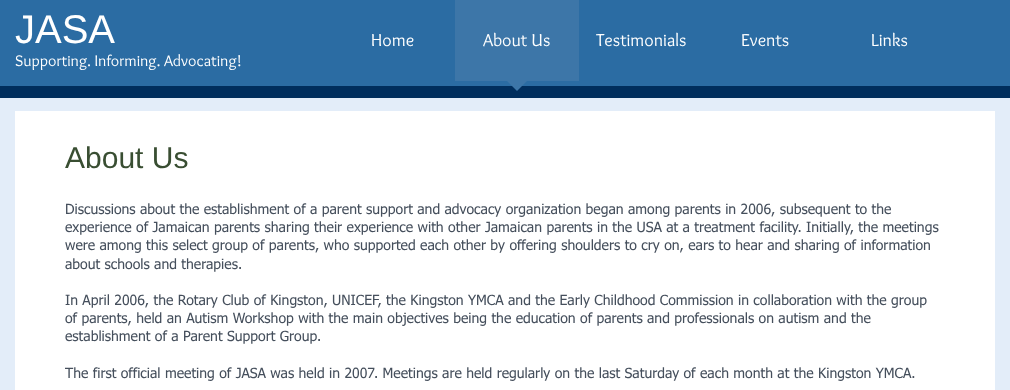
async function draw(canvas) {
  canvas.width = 1010;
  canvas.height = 390;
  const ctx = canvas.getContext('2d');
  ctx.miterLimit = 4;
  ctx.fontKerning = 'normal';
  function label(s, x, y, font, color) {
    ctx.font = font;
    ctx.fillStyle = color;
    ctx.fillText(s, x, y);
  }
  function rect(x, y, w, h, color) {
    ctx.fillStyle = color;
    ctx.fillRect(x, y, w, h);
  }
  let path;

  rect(0, 0, 1010, 390, '#e3edf9');
  rect(0, 0, 1010, 86, '#2b6ca3');
  rect(0, 86, 1010, 12, '#002e5d');
  label('JASA', 15, 43, '40px Liberation Sans', '#fff');
  label('Supporting. Informing. Advocating!', 15, 66, '16px Overlock', '#fff');
  label('Home', 371, 46, '18px Overlock', '#fff');
  rect(455, 0, 124, 81, '#3d76a8');
  label('About Us', 483, 46, '18px Overlock', '#fff');
  ctx.fillStyle = '#3d76a8';
  path = new Path2D('M507 81H527L517 91Z');
  ctx.fill(path);
  label('Testimonials', 596, 46, '18px Overlock', '#fff');
  label('Events', 741, 46, '18px Overlock', '#fff');
  label('Links', 871, 46, '18px Overlock', '#fff');
  rect(15, 111, 980, 279, '#fff');
  label('About Us', 65, 168, '30px Liberation Sans', '#394e32');
  label('Discussions about the establishment of a parent support and advocacy organization began among parents in 2006, subsequent to the', 65, 214, '14px tahoma', '#454f5c');
  label('experience of Jamaican parents sharing their experience with other Jamaican parents in the USA at a treatment facility. Initially, the meetings', 65, 232, '14px tahoma', '#454f5c');
  label('were among this select group of parents, who supported each other by offering shoulders to cry on, ears to hear and sharing of information', 65, 250, '14px tahoma', '#454f5c');
  label('about schools and therapies.', 65, 269, '14px tahoma', '#454f5c');
  label('In April 2006, the Rotary Club of Kingston, UNICEF, the Kingston YMCA and the Early Childhood Commission in collaboration with the group', 65, 305, '14px tahoma', '#454f5c');
  label('of parents, held an Autism Workshop with the main objectives being the education of parents and professionals on autism and the', 65, 323, '14px tahoma', '#454f5c');
  label('establishment of a Parent Support Group.', 65, 341, '14px tahoma', '#454f5c');
  label('The first official meeting of JASA was held in 2007. Meetings are held regularly on the last Saturday of each month at the Kingston YMCA.', 65, 378, '14px tahoma', '#454f5c');
}

draw(document.querySelector('canvas'));
